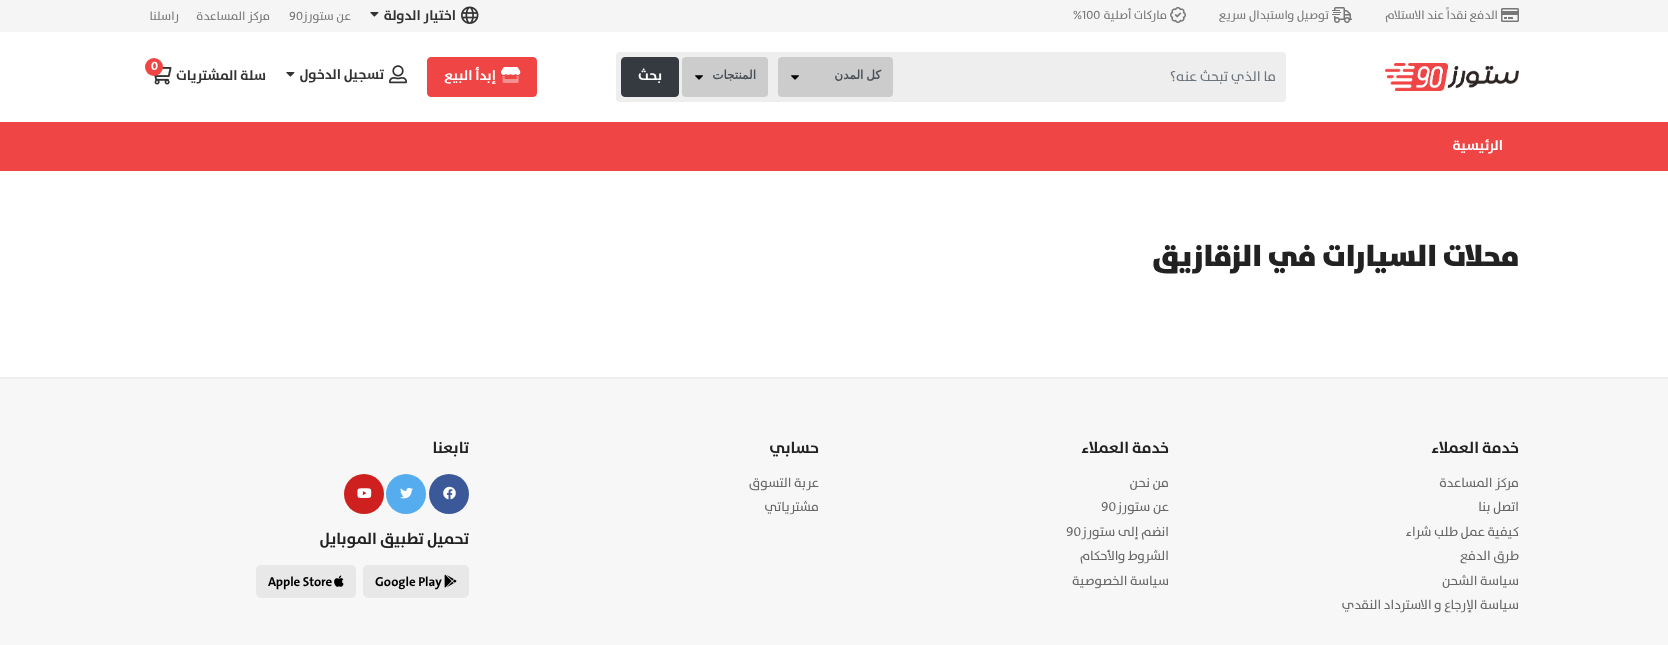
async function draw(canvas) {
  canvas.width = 1668;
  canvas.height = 645;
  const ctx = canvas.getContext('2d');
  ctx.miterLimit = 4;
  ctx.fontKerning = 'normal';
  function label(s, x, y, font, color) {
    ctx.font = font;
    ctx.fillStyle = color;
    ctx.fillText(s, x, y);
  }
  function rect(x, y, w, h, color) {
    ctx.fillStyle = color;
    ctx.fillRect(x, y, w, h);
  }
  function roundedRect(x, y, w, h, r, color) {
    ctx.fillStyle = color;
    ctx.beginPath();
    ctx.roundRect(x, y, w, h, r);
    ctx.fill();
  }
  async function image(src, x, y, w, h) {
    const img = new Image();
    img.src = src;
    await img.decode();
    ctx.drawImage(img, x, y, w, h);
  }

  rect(0, 0, 1668, 645, '#fff');
  rect(0, 0, 1668, 32, '#f5f5f5');
  await image('assets/img1.png', 1501, 8, 18, 14);
  ctx.direction = 'rtl';
  label('الدفع نقداً عند الاستلام', 1498, 19, '500 12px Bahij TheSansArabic', '#777');
  await image('assets/img2.png', 1332, 7, 20, 16);
  label('توصيل واستبدال سريع', 1329, 19, '500 12px Bahij TheSansArabic', '#777');
  await image('assets/img3.png', 1170, 7, 16, 16);
  label('ماركات أصلية', 1167, 19, '500 12px Bahij TheSansArabic', '#777');
  ctx.direction = 'ltr';
  label('%100', 1073, 19, '500 12px Bahij TheSansArabic', '#777');
  await image('assets/img4.png', 461, 6, 18, 18);
  ctx.direction = 'rtl';
  label('اختيار الدولة', 456, 20, 'bold 14px Bahij TheSansArabic', '#333');
  await image('assets/img5.png', 370, 12, 9, 5);
  label('عن ستورز', 351, 20, '500 12px Bahij TheSansArabic', '#777');
  ctx.direction = 'ltr';
  label('90', 289, 20, '500 12px Bahij TheSansArabic', '#777');
  ctx.direction = 'rtl';
  label('مركز المساعدة', 270, 20, '500 12px Bahij TheSansArabic', '#777');
  label('راسلنا', 179, 20, '500 12px Bahij TheSansArabic', '#777');
  await image('assets/img6.png', 1385, 63, 134, 28);
  roundedRect(616, 52, 670, 50, 4, '#eee');
  label('ما الذي تبحث عنه؟', 1276, 81, '500 14px Bahij TheSansArabic', '#6c757d');
  roundedRect(778, 57, 115, 40, 4, '#ccc');
  await image('assets/img7.png', 791, 75, 8, 5);
  ctx.wordSpacing = '-1px';
  label('كل المدن', 881, 79, 'bold 12px DejaVu Sans', '#495057');
  roundedRect(682, 57, 86, 40, 4, '#ccc');
  await image('assets/img7.png', 695, 75, 8, 5);
  ctx.wordSpacing = '0px';
  label('المنتجات', 756, 79, 'bold 12px DejaVu Sans', '#495057');
  ctx.fillStyle = '#343a40';
  ctx.beginPath();
  ctx.roundRect(621.5, 57.5, 57, 39, 3.5);
  ctx.fill();
  ctx.strokeStyle = '#343a40';
  ctx.stroke();
  label('بحث', 662, 80, 'bold 14px Bahij TheSansArabic', '#fff');
  ctx.fillStyle = '#f04545';
  ctx.beginPath();
  ctx.roundRect(427.5, 57.5, 109, 39, 3.5);
  ctx.fill();
  ctx.strokeStyle = '#f04545';
  ctx.stroke();
  await image('assets/img8.png', 501, 67, 20, 8);
  await image('assets/img9.png', 502, 75, 17, 8);
  label('إبدأ البيع', 496, 80, 'bold 14px Bahij TheSansArabic', '#fff');
  await image('assets/img10.png', 389, 65, 18, 19);
  label('تسجيل الدخول', 384, 79, 'bold 14px Bahij TheSansArabic', '#333');
  await image('assets/img11.png', 286, 72, 9, 5);
  await image('assets/img12.png', 154, 67, 18, 18);
  ctx.fillStyle = '#f04545';
  ctx.beginPath();
  ctx.arc(154, 67, 9, 0, 2 * Math.PI);
  ctx.fill();
  ctx.direction = 'ltr';
  label('0', 151, 70, 'bold 12px Bahij TheSansArabic', '#fff');
  ctx.direction = 'rtl';
  label('سلة المشتريات', 266, 80, 'bold 14px Bahij TheSansArabic', '#333');
  rect(0, 122, 1668, 49, '#f04545');
  label('الرئيسية', 1503, 150, 'bold 14px Bahij TheSansArabic', '#fff');
  label('محلات السيارات في الزقازيق', 1519, 266, '900 30px Bahij TheSansArabic', '#222');
  rect(0, 379, 1668, 266, '#f7f7f7');
  rect(0, 377, 1668, 2, '#eee');
  label('خدمة العملاء', 1519, 453, 'bold 16px Bahij TheSansArabic', '#222');
  label('مركز المساعدة', 1519, 487, '500 13px Bahij TheSansArabic', '#666');
  label('اتصل بنا', 1519, 511, '500 13px Bahij TheSansArabic', '#666');
  label('كيفية عمل طلب شراء', 1519, 536, '500 13px Bahij TheSansArabic', '#666');
  label('طرق الدفع', 1519, 560, '500 13px Bahij TheSansArabic', '#666');
  label('سياسة الشحن', 1519, 585, '500 13px Bahij TheSansArabic', '#666');
  label('سياسة الإرجاع و الاسترداد النقدي', 1519, 609, '500 13px Bahij TheSansArabic', '#666');
  label('خدمة العملاء', 1169, 453, 'bold 16px Bahij TheSansArabic', '#222');
  label('من نحن', 1169, 487, '500 13px Bahij TheSansArabic', '#666');
  label('عن ستورز', 1169, 511, '500 13px Bahij TheSansArabic', '#666');
  ctx.direction = 'ltr';
  label('90', 1101, 511, '500 13px Bahij TheSansArabic', '#666');
  ctx.direction = 'rtl';
  label('انضم إلى ستورز', 1169, 536, '500 13px Bahij TheSansArabic', '#666');
  ctx.direction = 'ltr';
  label('90', 1066, 536, '500 13px Bahij TheSansArabic', '#666');
  ctx.direction = 'rtl';
  label('الشروط والأحكام', 1169, 560, '500 13px Bahij TheSansArabic', '#666');
  label('سياسة الخصوصية', 1169, 585, '500 13px Bahij TheSansArabic', '#666');
  label('حسابي', 819, 453, 'bold 16px Bahij TheSansArabic', '#222');
  label('عربة التسوق', 819, 487, '500 13px Bahij TheSansArabic', '#666');
  label('مشترياتي', 819, 511, '500 13px Bahij TheSansArabic', '#666');
  label('تابعنا', 469, 453, 'bold 16px Bahij TheSansArabic', '#222');
  ctx.fillStyle = '#3b5999';
  ctx.beginPath();
  ctx.arc(449, 494, 20, 0, 2 * Math.PI);
  ctx.fill();
  await image('assets/img13.png', 443, 486, 13, 14);
  ctx.fillStyle = '#55acee';
  ctx.beginPath();
  ctx.arc(406, 494, 20, 0, 2 * Math.PI);
  ctx.fill();
  await image('assets/img14.png', 400, 487, 13, 12);
  ctx.fillStyle = '#cd201f';
  ctx.beginPath();
  ctx.arc(364, 494, 20, 0, 2 * Math.PI);
  ctx.fill();
  await image('assets/img15.png', 357, 488, 15, 10);
  label('تحميل تطبيق الموبايل', 469, 544, 'bold 16px Bahij TheSansArabic', '#222');
  roundedRect(363, 565, 106, 33, 5, '#e8e8e8');
  await image('assets/img16.png', 444, 574, 13, 14);
  ctx.direction = 'ltr';
  label('Google Play', 375, 586, 'bold 13px Bahij TheSansArabic', '#000');
  roundedRect(256, 565, 100, 33, 5, '#e8e8e8');
  await image('assets/img17.png', 334, 575, 10, 12);
  label('Apple Store', 268, 586, 'bold 13px Bahij TheSansArabic', '#000');
}

draw(document.querySelector('canvas'));
